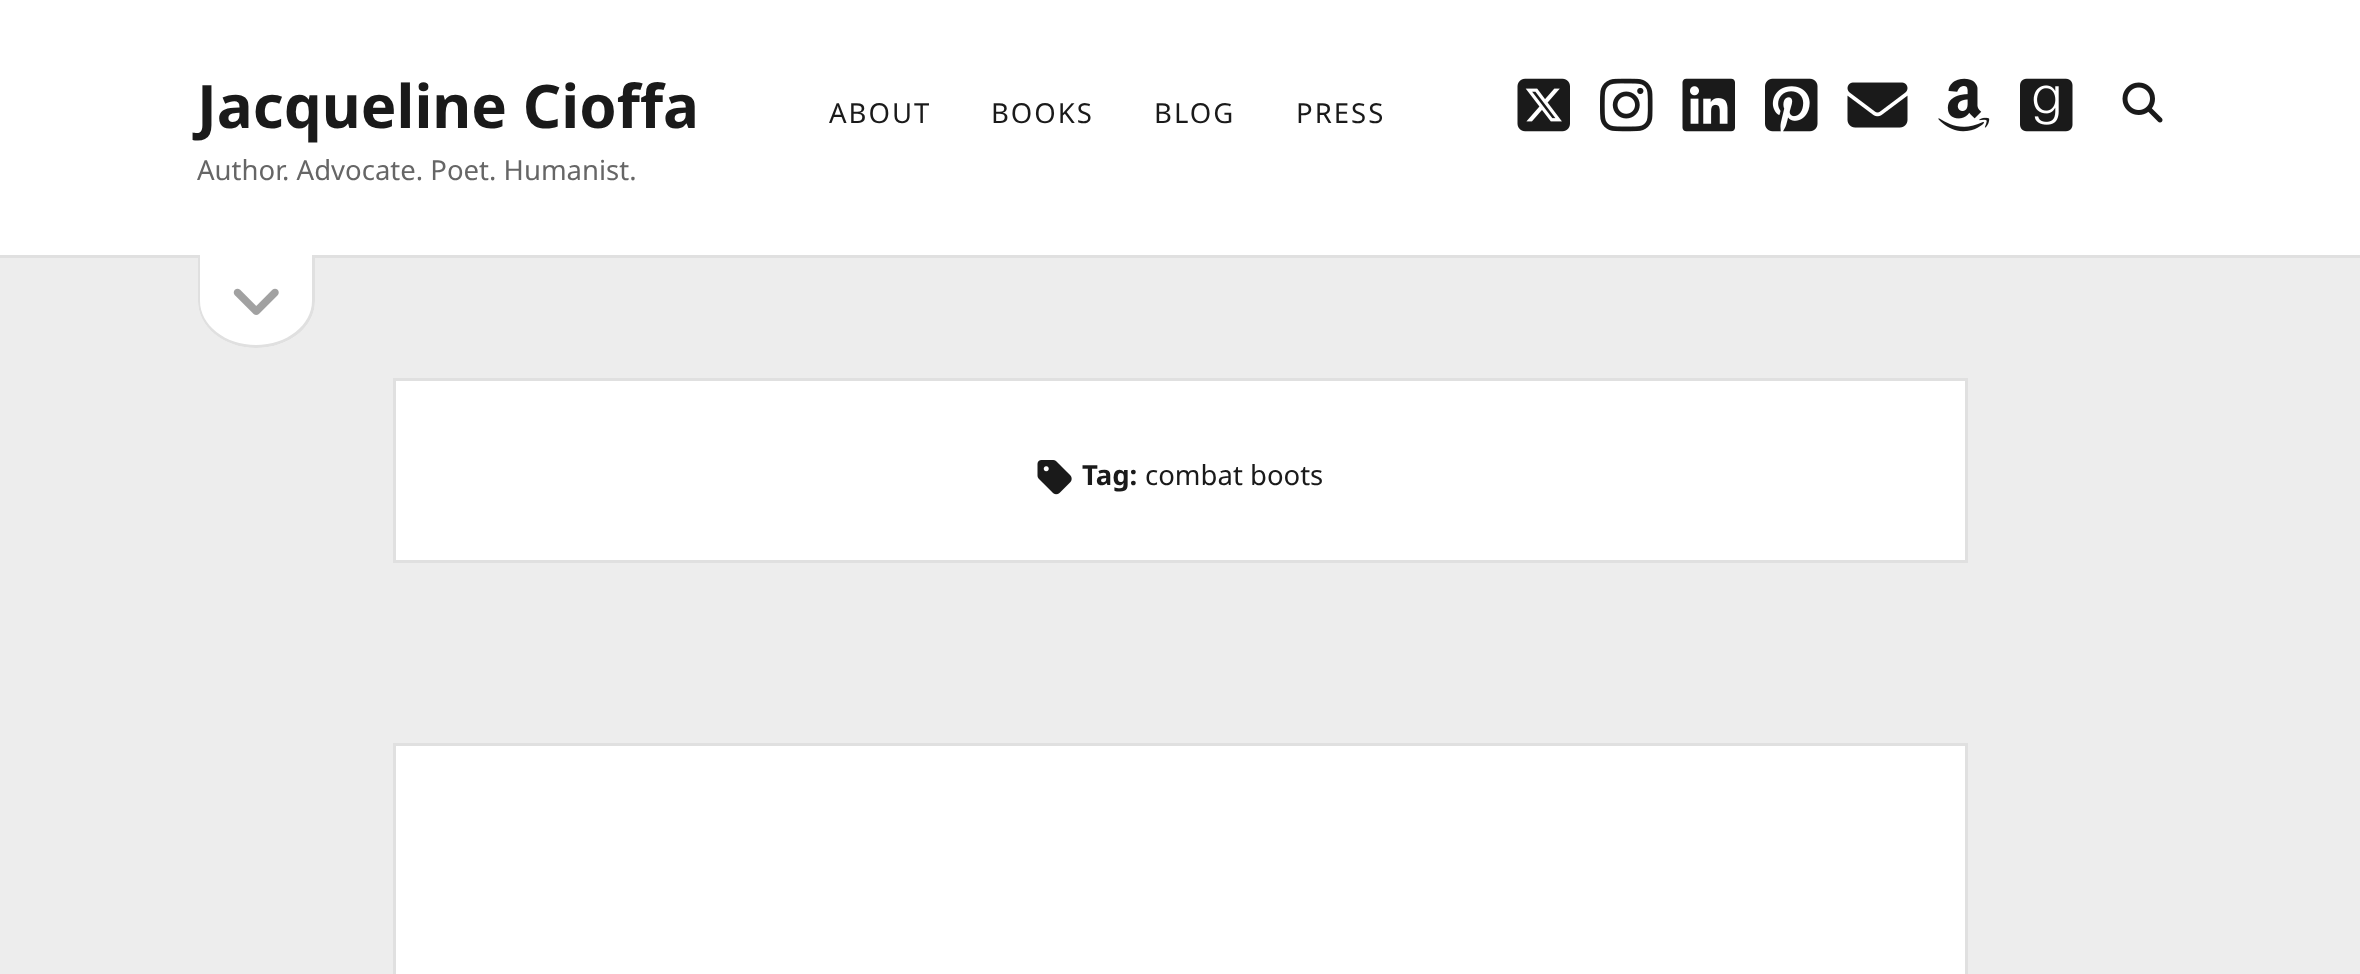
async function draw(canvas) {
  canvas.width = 2360;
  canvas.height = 974;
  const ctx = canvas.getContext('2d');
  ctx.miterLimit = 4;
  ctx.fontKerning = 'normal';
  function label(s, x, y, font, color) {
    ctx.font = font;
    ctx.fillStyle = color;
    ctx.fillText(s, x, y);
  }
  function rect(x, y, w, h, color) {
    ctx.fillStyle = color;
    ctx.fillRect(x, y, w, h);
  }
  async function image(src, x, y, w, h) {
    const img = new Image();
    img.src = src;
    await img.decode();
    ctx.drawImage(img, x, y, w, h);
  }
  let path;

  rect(0, 0, 2360, 974, '#ededed');
  rect(0, 0, 2360, 255, '#fff');
  rect(0, 255, 2360, 3, '#e0e0e0');
  label('Jacqueline Cioffa', 197, 128, 'bold 60px Noto Sans', '#1a1a1a');
  label('Author. Advocate. Poet. Humanist.', 197, 180, '27.5px Noto Sans', '#666');
  ctx.letterSpacing = '2px';
  label('ABOUT', 829, 123, '27.5px Noto Sans', '#1a1a1a');
  label('BOOKS', 991, 123, '27.5px Noto Sans', '#1a1a1a');
  label('BLOG', 1154, 123, '27.5px Noto Sans', '#1a1a1a');
  label('PRESS', 1296, 123, '27.5px Noto Sans', '#1a1a1a');
  await image('assets/img1.png', 1517, 78, 53, 54);
  await image('assets/img2.png', 1600, 78, 53, 54);
  await image('assets/img3.png', 1682, 78, 53, 54);
  await image('assets/img4.png', 1765, 78, 53, 54);
  await image('assets/img5.png', 1847, 82, 61, 46);
  await image('assets/img6.png', 1938, 78, 52, 54);
  await image('assets/img7.png', 2020, 78, 53, 54);
  await image('assets/img8.png', 2122, 82, 41, 41);
  ctx.fillStyle = '#fff';
  path = new Path2D('M198 255H315V301C315 327 289 348 256 348C224 348 198 327 198 301Z');
  ctx.fill(path);
  ctx.fillStyle = '#e0e0e0';
  path = new Path2D('M198 255H315V301C315 327 289 348 256 348C224 348 198 327 198 301ZM200 255H312V301C312 325 287 345 256 345C225 345 200 325 200 301Z');
  ctx.fill(path, 'evenodd');
  await image('assets/img9.png', 233, 288, 46, 27);
  ctx.fillStyle = '#fff';
  ctx.beginPath();
  ctx.rect(394.5, 379.5, 1572, 182);
  ctx.fill();
  ctx.strokeStyle = '#e0e0e0';
  ctx.lineWidth = 3;
  ctx.stroke();
  await image('assets/img10.png', 1037, 460, 35, 35);
  ctx.letterSpacing = '0px';
  label('Tag:', 1082, 485, 'bold 27.5px Noto Sans', '#1a1a1a');
  label('combat boots', 1145, 485, '27.5px Noto Sans', '#1a1a1a');
  ctx.fillStyle = '#fff';
  ctx.beginPath();
  ctx.rect(394.5, 744.5, 1572, 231);
  ctx.fill();
  ctx.stroke();
}

draw(document.querySelector('canvas'));
